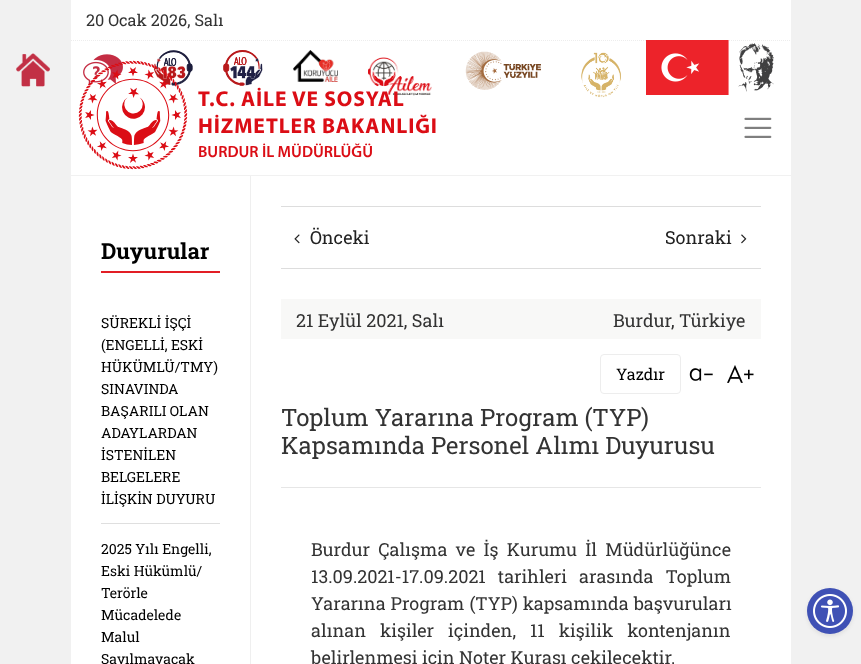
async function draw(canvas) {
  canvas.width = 861;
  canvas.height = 664;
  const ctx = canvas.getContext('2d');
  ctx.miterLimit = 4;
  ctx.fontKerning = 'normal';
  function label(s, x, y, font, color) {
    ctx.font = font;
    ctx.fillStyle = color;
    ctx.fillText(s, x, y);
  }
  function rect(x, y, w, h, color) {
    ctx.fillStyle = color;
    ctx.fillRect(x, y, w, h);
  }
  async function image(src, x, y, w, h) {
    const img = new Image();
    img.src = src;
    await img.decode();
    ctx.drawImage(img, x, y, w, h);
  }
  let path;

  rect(0, 0, 861, 664, '#f1f1f1');
  rect(71, 0, 720, 175, '#fff');
  path = new Path2D('M71 40.5H791');
  ctx.strokeStyle = '#ededed';
  ctx.setLineDash([1, 1]);
  ctx.stroke(path);
  label('20 Ocak 2026, Salı', 86, 26, '16.25px Roboto Slab', '#333');
  await image('assets/img1.png', 646, 40, 128, 55);
  await image('assets/img2.png', 16, 53, 34, 34);
  await image('assets/img3.png', 83, 54, 40, 32);
  await image('assets/img4.png', 153, 50, 40, 36);
  await image('assets/img5.png', 223, 50, 40, 36);
  await image('assets/img6.png', 293, 50, 45, 32);
  await image('assets/img7.png', 368, 57, 64, 39);
  await image('assets/img8.png', 465, 51, 76, 39);
  await image('assets/img9.png', 581, 52, 40, 46);
  await image('assets/img10.png', 78, 60, 110, 110);
  ctx.letterSpacing = '0.9px';
  label('T.C. AİLE VE SOSYAL', 198, 106, 'bold 21.6px Myriad', '#db0d15');
  label('HİZMETLER BAKANLIĞI', 198, 133, 'bold 21.6px Myriad', '#db0d15');
  ctx.letterSpacing = '0px';
  label('BURDUR İL MÜDÜRLÜĞÜ', 198, 157, '600 16.25px Myriad', '#db0d15');
  await image('assets/img11.png', 744, 117, 28, 21);
  rect(71, 176, 720, 488, '#fff');
  rect(250, 176, 1, 488, '#efefef');
  rect(101, 271, 119, 2, '#e21e25');
  label('Duyurular', 101, 259, 'bold 22px Roboto Slab', '#000');
  label('SÜREKLİ İŞÇİ', 101, 328, '14px Roboto Slab', '#000');
  label('(ENGELLİ, ESKİ', 101, 350, '14px Roboto Slab', '#000');
  label('HÜKÜMLÜ/TMY)', 101, 372, '14px Roboto Slab', '#000');
  label('SINAVINDA', 101, 394, '14px Roboto Slab', '#000');
  label('BAŞARILI OLAN', 101, 416, '14px Roboto Slab', '#000');
  label('ADAYLARDAN', 101, 438, '14px Roboto Slab', '#000');
  label('İSTENİLEN', 101, 460, '14px Roboto Slab', '#000');
  label('BELGELERE', 101, 482, '14px Roboto Slab', '#000');
  label('İLİŞKİN DUYURU', 101, 504, '14px Roboto Slab', '#000');
  rect(101, 523, 119, 1, '#dfdfdf');
  label('2025 Yılı Engelli,', 101, 554, '14px Roboto Slab', '#000');
  label('Eski Hükümlü/', 101, 576, '14px Roboto Slab', '#000');
  label('Terörle', 101, 598, '14px Roboto Slab', '#000');
  label('Mücadelede', 101, 620, '14px Roboto Slab', '#000');
  label('Malul', 101, 642, '14px Roboto Slab', '#000');
  label('Sayılmayacak', 101, 664, '14px Roboto Slab', '#000');
  rect(281, 206, 480, 1, '#ddd');
  rect(281, 268, 480, 1, '#ddd');
  await image('assets/img12.png', 294, 234, 6, 10);
  label('Önceki', 310, 244, '18px Roboto Slab', '#222');
  label('Sonraki', 665, 244, '18px Roboto Slab', '#222');
  await image('assets/img13.png', 741, 234, 6, 10);
  rect(281, 299, 480, 40, '#f8f8f7');
  label('21 Eylül 2021, Salı', 296, 327, '18px Roboto Slab', '#333');
  label('Burdur, Türkiye', 613, 327, '18px Roboto Slab', '#333');
  ctx.beginPath();
  ctx.roundRect(600.5, 354.5, 80, 39, 3.5);
  ctx.setLineDash([]);
  ctx.stroke();
  label('Yazdır', 616, 380, '16px Roboto Slab', '#000');
  await image('assets/img14.png', 689, 368, 24, 13);
  await image('assets/img15.png', 727, 365, 27, 18);
  label('Toplum Yararına Program (TYP)', 281, 426, '24px Roboto Slab', '#333');
  label('Kapsamında Personel Alımı Duyurusu', 281, 454, '24px Roboto Slab', '#333');
  rect(281, 487, 480, 1, '#e6e6e6');
  ctx.wordSpacing = '3.75px';
  label('Burdur Çalışma ve İş Kurumu İl Müdürlüğünce', 311, 556, '18px Roboto Slab', '#333');
  ctx.wordSpacing = '7.5px';
  label('13.09.2021-17.09.2021 tarihleri arasında Toplum', 311, 583, '18px Roboto Slab', '#333');
  ctx.wordSpacing = '0.5px';
  label('Yararına Program (TYP) kapsamında başvuruları', 311, 610, '18px Roboto Slab', '#333');
  ctx.wordSpacing = '9.5px';
  label('alınan kişiler içinden, 11 kişilik kontenjanın', 311, 637, '18px Roboto Slab', '#333');
  ctx.wordSpacing = '0px';
  label('belirlenmesi için Noter Kurası çekilecektir.', 311, 664, '18px Roboto Slab', '#333');
  ctx.fillStyle = '#00000014';
  ctx.filter = 'blur(2px)';
  ctx.beginPath();
  ctx.roundRect(807, 590, 46, 46, 23);
  ctx.fill();
  ctx.filter = 'none';
  ctx.fillStyle = '#3f51b5';
  ctx.beginPath();
  ctx.arc(830, 611, 23, 0, 2 * Math.PI);
  ctx.fill();
  await image('assets/img16.png', 813, 594, 34, 34);
}

draw(document.querySelector('canvas'));
